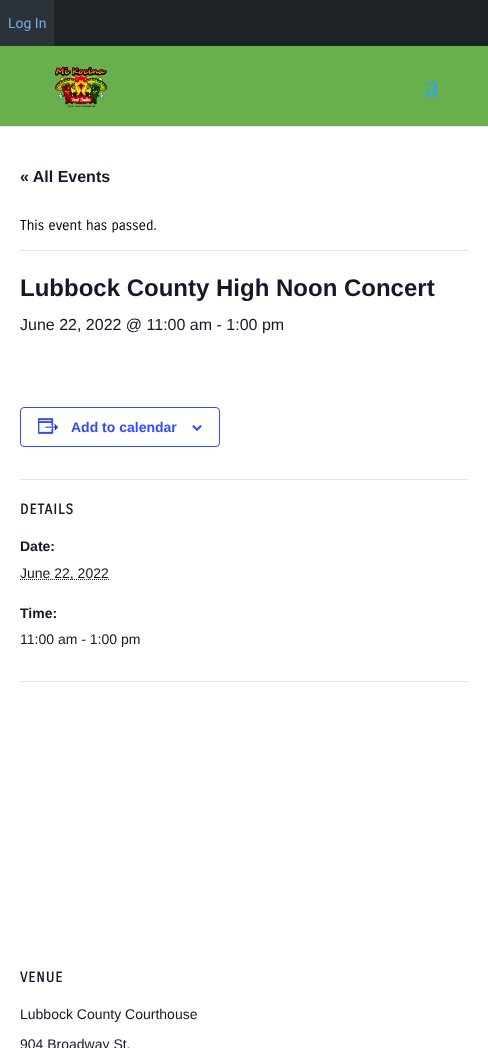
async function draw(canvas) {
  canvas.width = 488;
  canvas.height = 1048;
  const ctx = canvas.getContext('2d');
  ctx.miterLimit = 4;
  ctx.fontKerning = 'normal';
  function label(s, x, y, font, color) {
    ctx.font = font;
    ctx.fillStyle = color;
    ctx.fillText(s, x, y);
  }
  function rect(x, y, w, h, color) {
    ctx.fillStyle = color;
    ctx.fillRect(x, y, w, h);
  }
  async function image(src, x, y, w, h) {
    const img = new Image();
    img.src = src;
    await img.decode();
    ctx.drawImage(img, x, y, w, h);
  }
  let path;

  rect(0, 0, 488, 1048, '#fff');
  rect(54, 0, 434, 46, '#1d2327');
  rect(0, 0, 54, 46, '#2c3338');
  label('Log In', 8, 28, '14px Roboto', '#72aee6');
  rect(0, 126, 488, 1, '#e6e6e6');
  rect(0, 46, 488, 80, '#68b04d');
  await image('assets/img1.png', 55, 66, 53, 42);
  label('a', 425, 97, '32px Liberation Serif', '#2ea3f2');
  label('« All Events', 20, 182, 'bold 16px Liberation Sans', '#141827');
  rect(20, 250, 448, 1, '#e4e4e4');
  label('This event has passed.', 20, 230, '14px Carrois Gothic', '#000');
  label('Lubbock County High Noon Concert', 20, 296, 'bold 24px Liberation Sans', '#141827');
  label('June 22, 2022 @ 11:00 am - 1:00 pm', 20, 330, '16px Liberation Sans', '#141827');
  ctx.beginPath();
  ctx.roundRect(20.5, 407.5, 199, 39, 3.5);
  ctx.strokeStyle = '#334aff';
  ctx.stroke();
  await image('assets/img2.png', 38, 418, 21, 16);
  label('Add to calendar', 71, 432, 'bold 14px Liberation Sans', '#334aff');
  await image('assets/img3.png', 192, 425, 10, 6);
  rect(20, 479, 448, 1, '#e4e4e4');
  ctx.letterSpacing = '1px';
  label('DETAILS', 20, 514, 'bold 14px Carrois Gothic SC', '#141827');
  ctx.letterSpacing = '0px';
  label('Date:', 20, 551, 'bold 14px Liberation Sans', '#141827');
  path = new Path2D('M20 579.5H109');
  ctx.strokeStyle = '#141827';
  ctx.setLineDash([1, 1]);
  ctx.stroke(path);
  label('June 22, 2022', 20, 578, '14px Liberation Sans', '#141827');
  label('Time:', 20, 618, 'bold 14px Liberation Sans', '#141827');
  label('11:00 am - 1:00 pm', 20, 644, '14px Liberation Sans', '#141827');
  rect(20, 681, 448, 1, '#e4e4e4');
  ctx.letterSpacing = '1px';
  label('VENUE', 20, 982, 'bold 14px Carrois Gothic SC', '#141827');
  ctx.letterSpacing = '0px';
  label('Lubbock County Courthouse', 20, 1019, '14px Liberation Sans', '#141827');
  label('904 Broadway St.', 20, 1049, '14px Liberation Sans', '#141827');
}

draw(document.querySelector('canvas'));
